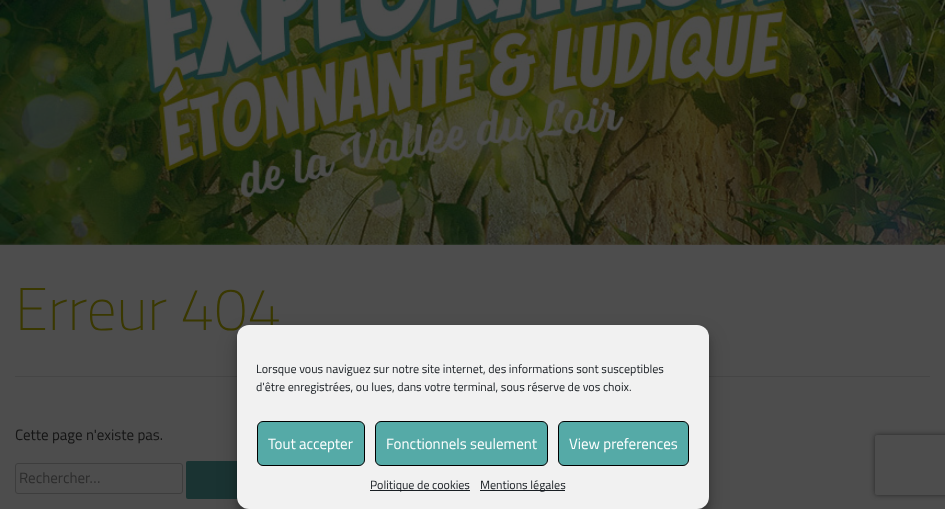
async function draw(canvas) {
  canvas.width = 945;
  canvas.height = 509;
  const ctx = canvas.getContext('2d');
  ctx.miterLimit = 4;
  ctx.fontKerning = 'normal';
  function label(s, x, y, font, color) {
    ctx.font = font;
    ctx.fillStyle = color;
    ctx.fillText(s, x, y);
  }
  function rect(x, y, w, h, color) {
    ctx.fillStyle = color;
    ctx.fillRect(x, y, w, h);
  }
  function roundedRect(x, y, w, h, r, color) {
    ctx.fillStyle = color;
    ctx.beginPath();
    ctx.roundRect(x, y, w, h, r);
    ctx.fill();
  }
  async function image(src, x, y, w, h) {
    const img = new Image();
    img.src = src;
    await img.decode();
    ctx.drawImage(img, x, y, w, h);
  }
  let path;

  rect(0, 0, 945, 509, '#4d4d4d');
  await image('assets/img1.png', 0, 0, 945, 245);
  rect(15, 376, 915, 1, '#454545');
  label('Erreur 404', 15, 330, '200 60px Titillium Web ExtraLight', '#3a3801');
  label('Cette page n\'existe pas.', 15, 440, '15px Titillium Web', '#141414');
  ctx.beginPath();
  ctx.roundRect(15.5, 463.5, 167, 30, 2.5);
  ctx.strokeStyle = '#3d3d3d';
  ctx.stroke();
  label('Rechercher…', 19, 483, '15px Titillium Web', '#2c2c2c');
  roundedRect(186, 461, 256, 38, 2, '#1a3332');
  ctx.fillStyle = '#0000003b';
  ctx.filter = 'blur(3px)';
  ctx.beginPath();
  ctx.roundRect(237, 331, 472, 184, 12);
  ctx.fill();
  ctx.filter = 'none';
  ctx.fillStyle = '#00000030';
  ctx.filter = 'blur(10px)';
  ctx.beginPath();
  ctx.roundRect(237, 335, 472, 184, 12);
  ctx.fill();
  ctx.filter = 'none';
  roundedRect(237, 325, 472, 184, 12, '#f1f1f1');
  label('Lorsque vous naviguez sur notre site internet, des informations sont susceptibles', 256, 373, '12px Titillium Web', '#191e23');
  label('d\'être enregistrées, ou lues, dans votre terminal, sous réserve de vos choix.', 256, 391, '12px Titillium Web', '#191e23');
  ctx.fillStyle = '#55aaa7';
  ctx.beginPath();
  ctx.roundRect(257.5, 421.5, 107, 44, 5.5);
  ctx.fill();
  ctx.strokeStyle = '#000';
  ctx.stroke();
  label('Tout accepter', 268, 449, '15px Titillium Web', '#fff');
  ctx.fillStyle = '#55aaa7';
  ctx.beginPath();
  ctx.roundRect(375.5, 421.5, 172, 44, 5.5);
  ctx.fill();
  ctx.stroke();
  label('Fonctionnels seulement', 386, 449, '15px Titillium Web', '#fff');
  ctx.fillStyle = '#55aaa7';
  ctx.beginPath();
  ctx.roundRect(558.5, 421.5, 130, 44, 5.5);
  ctx.fill();
  ctx.stroke();
  label('View preferences', 569, 449, '15px Titillium Web', '#fff');
  rect(370, 490, 100, 1, '#191e23');
  label('Politique de cookies', 370, 489, '12px Titillium Web', '#191e23');
  rect(480, 490, 85, 1, '#191e23');
  label('Mentions légales', 480, 489, '12px Titillium Web', '#191e23');
  ctx.save();
  path = new Path2D('M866 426H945V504H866ZM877 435H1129C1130 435 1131 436 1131 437V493C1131 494 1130 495 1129 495H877C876 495 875 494 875 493V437C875 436 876 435 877 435Z');
  ctx.clip(path, 'evenodd');
  ctx.fillStyle = '#262626';
  ctx.filter = 'blur(2.5px)';
  ctx.beginPath();
  ctx.roundRect(875, 435, 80, 60, 2);
  ctx.fill();
  ctx.filter = 'none';
  ctx.restore();
}

draw(document.querySelector('canvas'));
